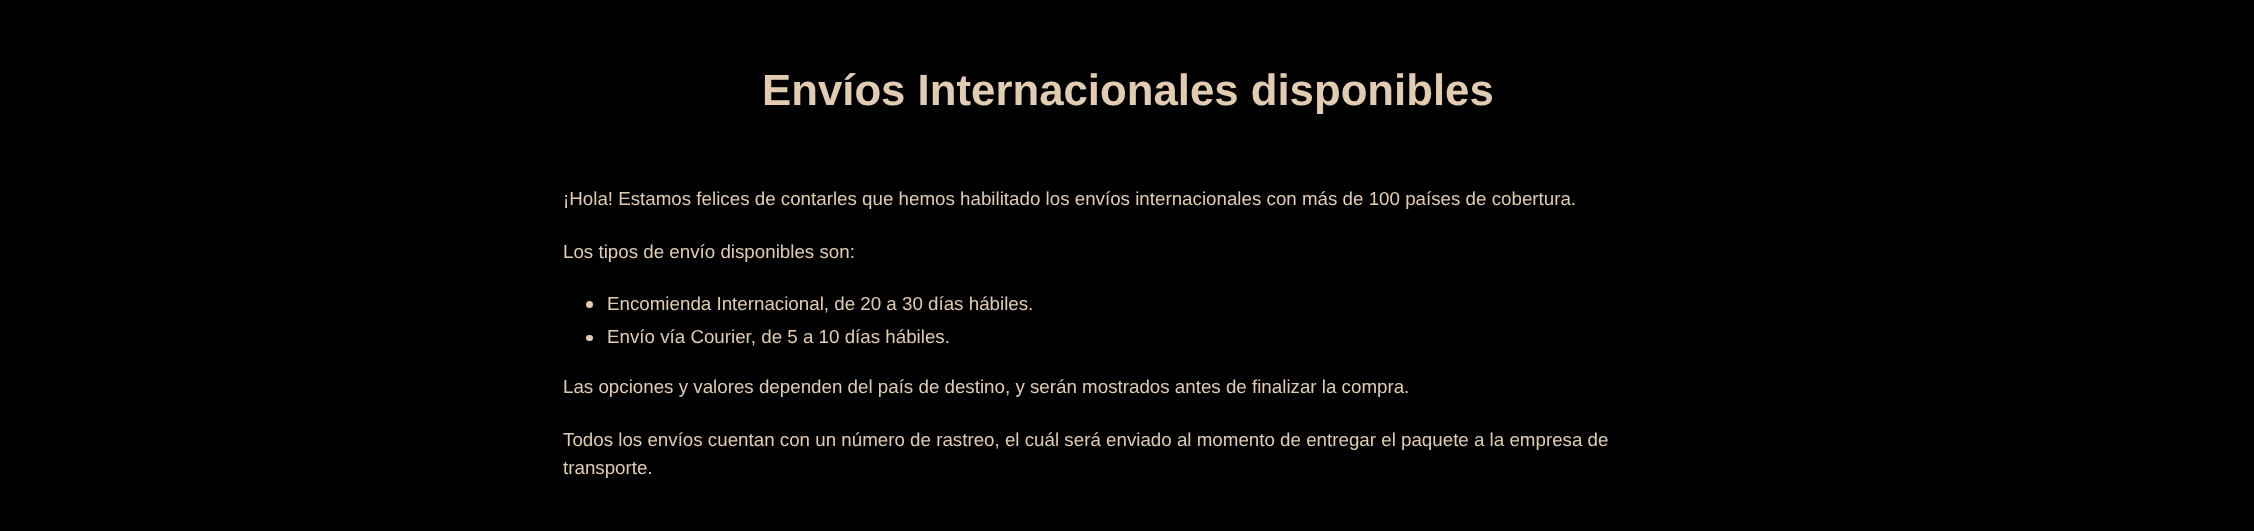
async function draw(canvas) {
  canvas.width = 2254;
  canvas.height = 531;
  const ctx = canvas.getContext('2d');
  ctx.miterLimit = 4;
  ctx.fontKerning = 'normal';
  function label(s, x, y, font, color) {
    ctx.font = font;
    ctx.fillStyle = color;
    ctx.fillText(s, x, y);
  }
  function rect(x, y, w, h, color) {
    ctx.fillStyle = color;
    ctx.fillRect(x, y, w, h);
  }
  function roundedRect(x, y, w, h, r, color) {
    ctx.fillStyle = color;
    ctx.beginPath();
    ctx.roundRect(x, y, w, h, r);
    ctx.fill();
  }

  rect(0, 0, 2254, 531, '#000');
  label('Envíos Internacionales disponibles', 762, 105, 'bold 43.75px Liberation Sans', '#e1ccb2');
  label('¡Hola! Estamos felices de contarles que hemos habilitado los envíos internacionales con más de 100 países de cobertura.', 563, 205, '18.75px Liberation Sans', '#e1ccb2');
  label('Los tipos de envío disponibles son:', 563, 258, '18.75px Liberation Sans', '#e1ccb2');
  ctx.beginPath();
  ctx.arc(589.5, 304.5, 3.5, 0, 2 * Math.PI);
  ctx.fill();
  label('Encomienda Internacional, de 20 a 30 días hábiles.', 607, 310, '18.75px Liberation Sans', '#e1ccb2');
  roundedRect(586, 335, 7, 6, 3, '#e1ccb2');
  label('Envío vía Courier, de 5 a 10 días hábiles.', 607, 343, '18.75px Liberation Sans', '#e1ccb2');
  label('Las opciones y valores dependen del país de destino, y serán mostrados antes de finalizar la compra.', 563, 393, '18.75px Liberation Sans', '#e1ccb2');
  label('Todos los envíos cuentan con un número de rastreo, el cuál será enviado al momento de entregar el paquete a la empresa de', 563, 446, '18.75px Liberation Sans', '#e1ccb2');
  label('transporte.', 563, 474, '18.75px Liberation Sans', '#e1ccb2');
}

draw(document.querySelector('canvas'));
